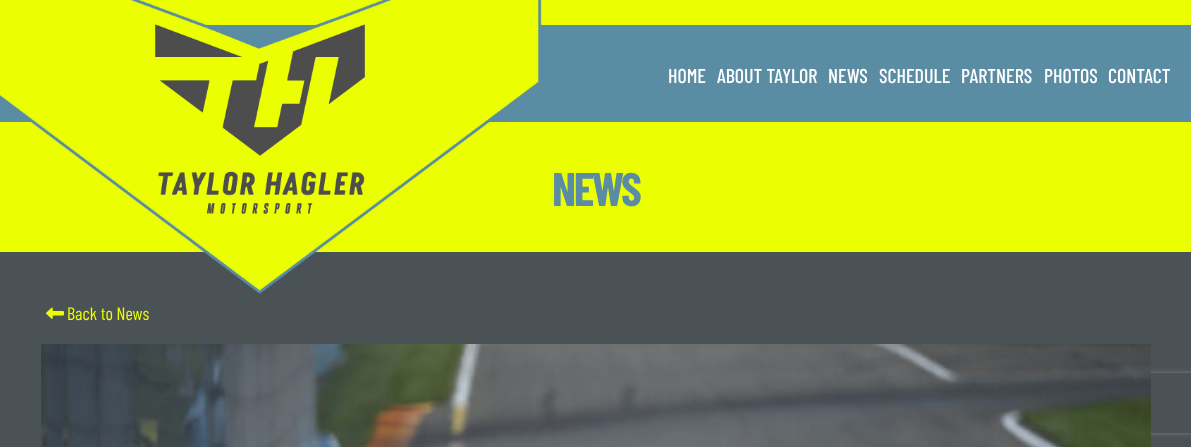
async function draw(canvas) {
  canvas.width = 1191;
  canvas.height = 447;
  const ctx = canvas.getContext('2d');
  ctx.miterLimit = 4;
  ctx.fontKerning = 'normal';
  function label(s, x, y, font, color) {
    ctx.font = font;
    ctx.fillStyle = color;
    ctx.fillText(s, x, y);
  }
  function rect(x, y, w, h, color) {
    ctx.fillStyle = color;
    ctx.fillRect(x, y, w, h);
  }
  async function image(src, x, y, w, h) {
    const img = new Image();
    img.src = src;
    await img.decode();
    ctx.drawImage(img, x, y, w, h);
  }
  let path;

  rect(0, 0, 1191, 447, '#4b5255');
  rect(138, 0, 1053, 25, '#ebff00');
  rect(0, 25, 1191, 97, '#5a8ca3');
  rect(0, 122, 1191, 130, '#ebff00');
  await image('assets/img1.png', 0, 0, 542, 294);
  label('HOME', 668, 83, '500 20px Barlow Condensed', '#fff');
  label('ABOUT TAYLOR', 717, 83, '500 20px Barlow Condensed', '#fff');
  label('NEWS', 828, 83, '500 20px Barlow Condensed', '#fff');
  label('SCHEDULE', 879, 83, '500 20px Barlow Condensed', '#fff');
  label('PARTNERS', 961, 83, '500 20px Barlow Condensed', '#fff');
  label('PHOTOS', 1044, 83, '500 20px Barlow Condensed', '#fff');
  label('CONTACT', 1108, 83, '500 20px Barlow Condensed', '#fff');
  ctx.letterSpacing = '-2.5px';
  label('NEWS', 552, 206, 'bold 47px Barlow Condensed', '#5a8ca3');
  await image('assets/img2.png', 46, 307, 18, 12);
  ctx.letterSpacing = '0px';
  label('Back to News', 67, 320, '18px Barlow Condensed', '#ebff00');
  ctx.save();
  path = new Path2D('M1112 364H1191V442H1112ZM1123 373H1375C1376 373 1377 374 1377 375V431C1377 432 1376 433 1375 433H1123C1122 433 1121 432 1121 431V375C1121 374 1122 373 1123 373Z');
  ctx.clip(path, 'evenodd');
  ctx.fillStyle = '#808080';
  ctx.filter = 'blur(2.5px)';
  ctx.beginPath();
  ctx.roundRect(1121, 373, 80, 60, 2);
  ctx.fill();
  ctx.filter = 'none';
  ctx.restore();
  await image('assets/img3.png', 41, 344, 1110, 103);
}

draw(document.querySelector('canvas'));
